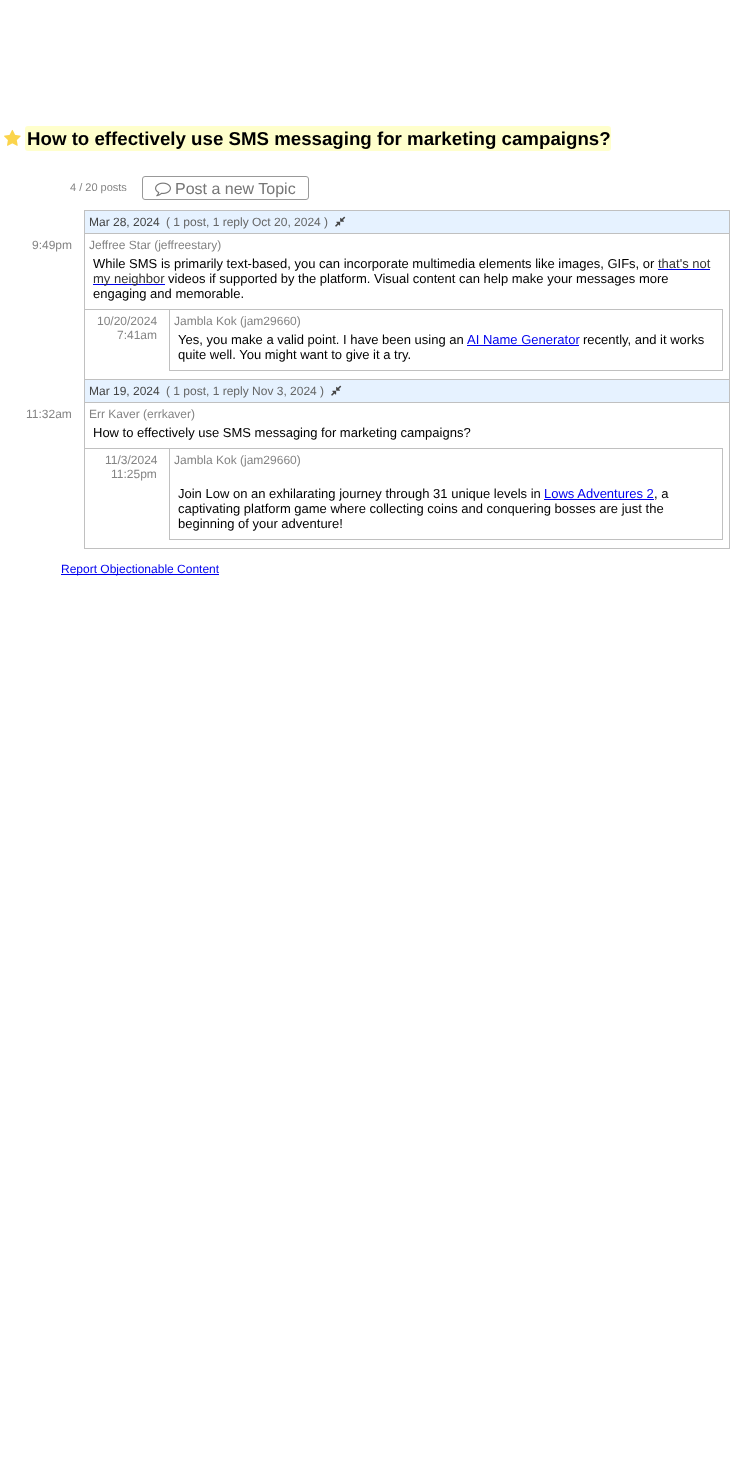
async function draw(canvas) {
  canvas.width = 745;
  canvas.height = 1476;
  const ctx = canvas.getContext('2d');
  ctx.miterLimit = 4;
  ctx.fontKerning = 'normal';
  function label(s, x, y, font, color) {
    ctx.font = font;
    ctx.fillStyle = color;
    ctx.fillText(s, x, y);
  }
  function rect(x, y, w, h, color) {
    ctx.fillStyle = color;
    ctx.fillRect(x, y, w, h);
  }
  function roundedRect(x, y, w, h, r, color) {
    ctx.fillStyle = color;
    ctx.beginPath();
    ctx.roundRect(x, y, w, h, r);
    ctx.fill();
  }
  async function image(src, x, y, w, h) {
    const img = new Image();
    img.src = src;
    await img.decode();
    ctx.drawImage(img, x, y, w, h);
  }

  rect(0, 0, 745, 1476, '#fff');
  await image('assets/img1.png', 4, 129, 17, 17);
  roundedRect(25, 126, 586, 25, 3, '#ffc');
  label('How to effectively use SMS messaging for marketing campaigns?', 27, 145, 'bold 18.7px Liberation Sans', '#000');
  label('4 / 20 posts', 70, 191, '11px Liberation Sans', '#848484');
  ctx.beginPath();
  ctx.roundRect(142.5, 176.5, 166, 23, 2.5);
  ctx.strokeStyle = '#999';
  ctx.stroke();
  await image('assets/img2.png', 155, 182, 16, 15);
  label('Post a new Topic', 175, 194, '16px Liberation Sans', '#767676');
  rect(84, 210, 646, 1, '#c0c0c0');
  rect(85, 211, 644, 22, '#e6f2ff');
  rect(729, 211, 1, 23, '#c0c0c0');
  rect(84, 233, 646, 1, '#c0c0c0');
  rect(84, 211, 1, 23, '#c0c0c0');
  label('Mar 28, 2024', 89, 226, '12px Liberation Sans', '#444');
  label('( 1 post, 1 reply Oct 20, 2024 )', 166, 226, '12px Liberation Sans', '#666');
  await image('assets/img3.png', 335, 216, 11, 11);
  label('9:49pm', 32, 249, '12px Liberation Sans', '#848484');
  rect(729, 234, 1, 315, '#c0c0c0');
  rect(84, 379, 646, 1, '#c0c0c0');
  rect(84, 234, 1, 146, '#c0c0c0');
  label('Jeffree Star (jeffreestary)', 89, 249, '12px Liberation Sans', '#848484');
  label('While SMS is primarily text-based, you can incorporate multimedia elements like images, GIFs, or', 93, 268, '13px Liberation Sans', '#000');
  label('that\'s not', 658, 268, '13px Liberation Sans', '#333');
  rect(658, 269, 52, 1, '#00e');
  rect(93, 284, 72, 1, '#00e');
  label('my neighbor', 93, 283, '13px Liberation Sans', '#333');
  label('videos if supported by the platform. Visual content can help make your messages more', 168, 283, '13px Liberation Sans', '#000');
  label('engaging and memorable.', 93, 298, '13px Liberation Sans', '#000');
  rect(85, 309, 638, 1, '#c0c0c0');
  label('10/20/2024', 97, 325, '12px Liberation Sans', '#848484');
  label('7:41am', 117, 339, '12px Liberation Sans', '#848484');
  rect(722, 310, 1, 61, '#c0c0c0');
  rect(169, 370, 554, 1, '#c0c0c0');
  rect(169, 310, 1, 61, '#c0c0c0');
  label('Jambla Kok (jam29660)', 174, 325, '12px Liberation Sans', '#848484');
  label('Yes, you make a valid point. I have been using an', 178, 344, '13px Liberation Sans', '#000');
  label('AI Name Generator', 467, 344, '13px Liberation Sans', '#00e');
  rect(467, 345, 112, 1, '#00e');
  label('recently, and it works', 583, 344, '13px Liberation Sans', '#000');
  label('quite well. You might want to give it a try.', 178, 359, '13px Liberation Sans', '#000');
  rect(85, 380, 644, 22, '#e6f2ff');
  rect(84, 402, 646, 1, '#c0c0c0');
  rect(84, 380, 1, 23, '#c0c0c0');
  label('Mar 19, 2024', 89, 395, '12px Liberation Sans', '#444');
  label('( 1 post, 1 reply Nov 3, 2024 )', 166, 395, '12px Liberation Sans', '#666');
  await image('assets/img3.png', 331, 385, 11, 11);
  label('11:32am', 26, 418, '12px Liberation Sans', '#848484');
  rect(84, 548, 646, 1, '#c0c0c0');
  rect(84, 403, 1, 146, '#c0c0c0');
  label('Err Kaver (errkaver)', 89, 418, '12px Liberation Sans', '#848484');
  label('How to effectively use SMS messaging for marketing campaigns?', 93, 437, '13px Liberation Sans', '#000');
  rect(85, 448, 638, 1, '#c0c0c0');
  label('11/3/2024', 105, 464, '12px Liberation Sans', '#848484');
  label('11:25pm', 111, 478, '12px Liberation Sans', '#848484');
  rect(722, 449, 1, 91, '#c0c0c0');
  rect(169, 539, 554, 1, '#c0c0c0');
  rect(169, 449, 1, 91, '#c0c0c0');
  label('Jambla Kok (jam29660)', 174, 464, '12px Liberation Sans', '#848484');
  label('Join Low on an exhilarating journey through 31 unique levels in', 178, 498, '13px Liberation Sans', '#000');
  label('Lows Adventures 2', 544, 498, '13px Liberation Sans', '#00e');
  rect(544, 499, 110, 1, '#00e');
  label(', a', 654, 498, '13px Liberation Sans', '#000');
  label('captivating platform game where collecting coins and conquering bosses are just the', 178, 513, '13px Liberation Sans', '#000');
  label('beginning of your adventure!', 178, 528, '13px Liberation Sans', '#000');
  rect(61, 574, 158, 1, '#00e');
  label('Report Objectionable Content', 61, 573, '12px Liberation Sans', '#00e');
}

draw(document.querySelector('canvas'));
